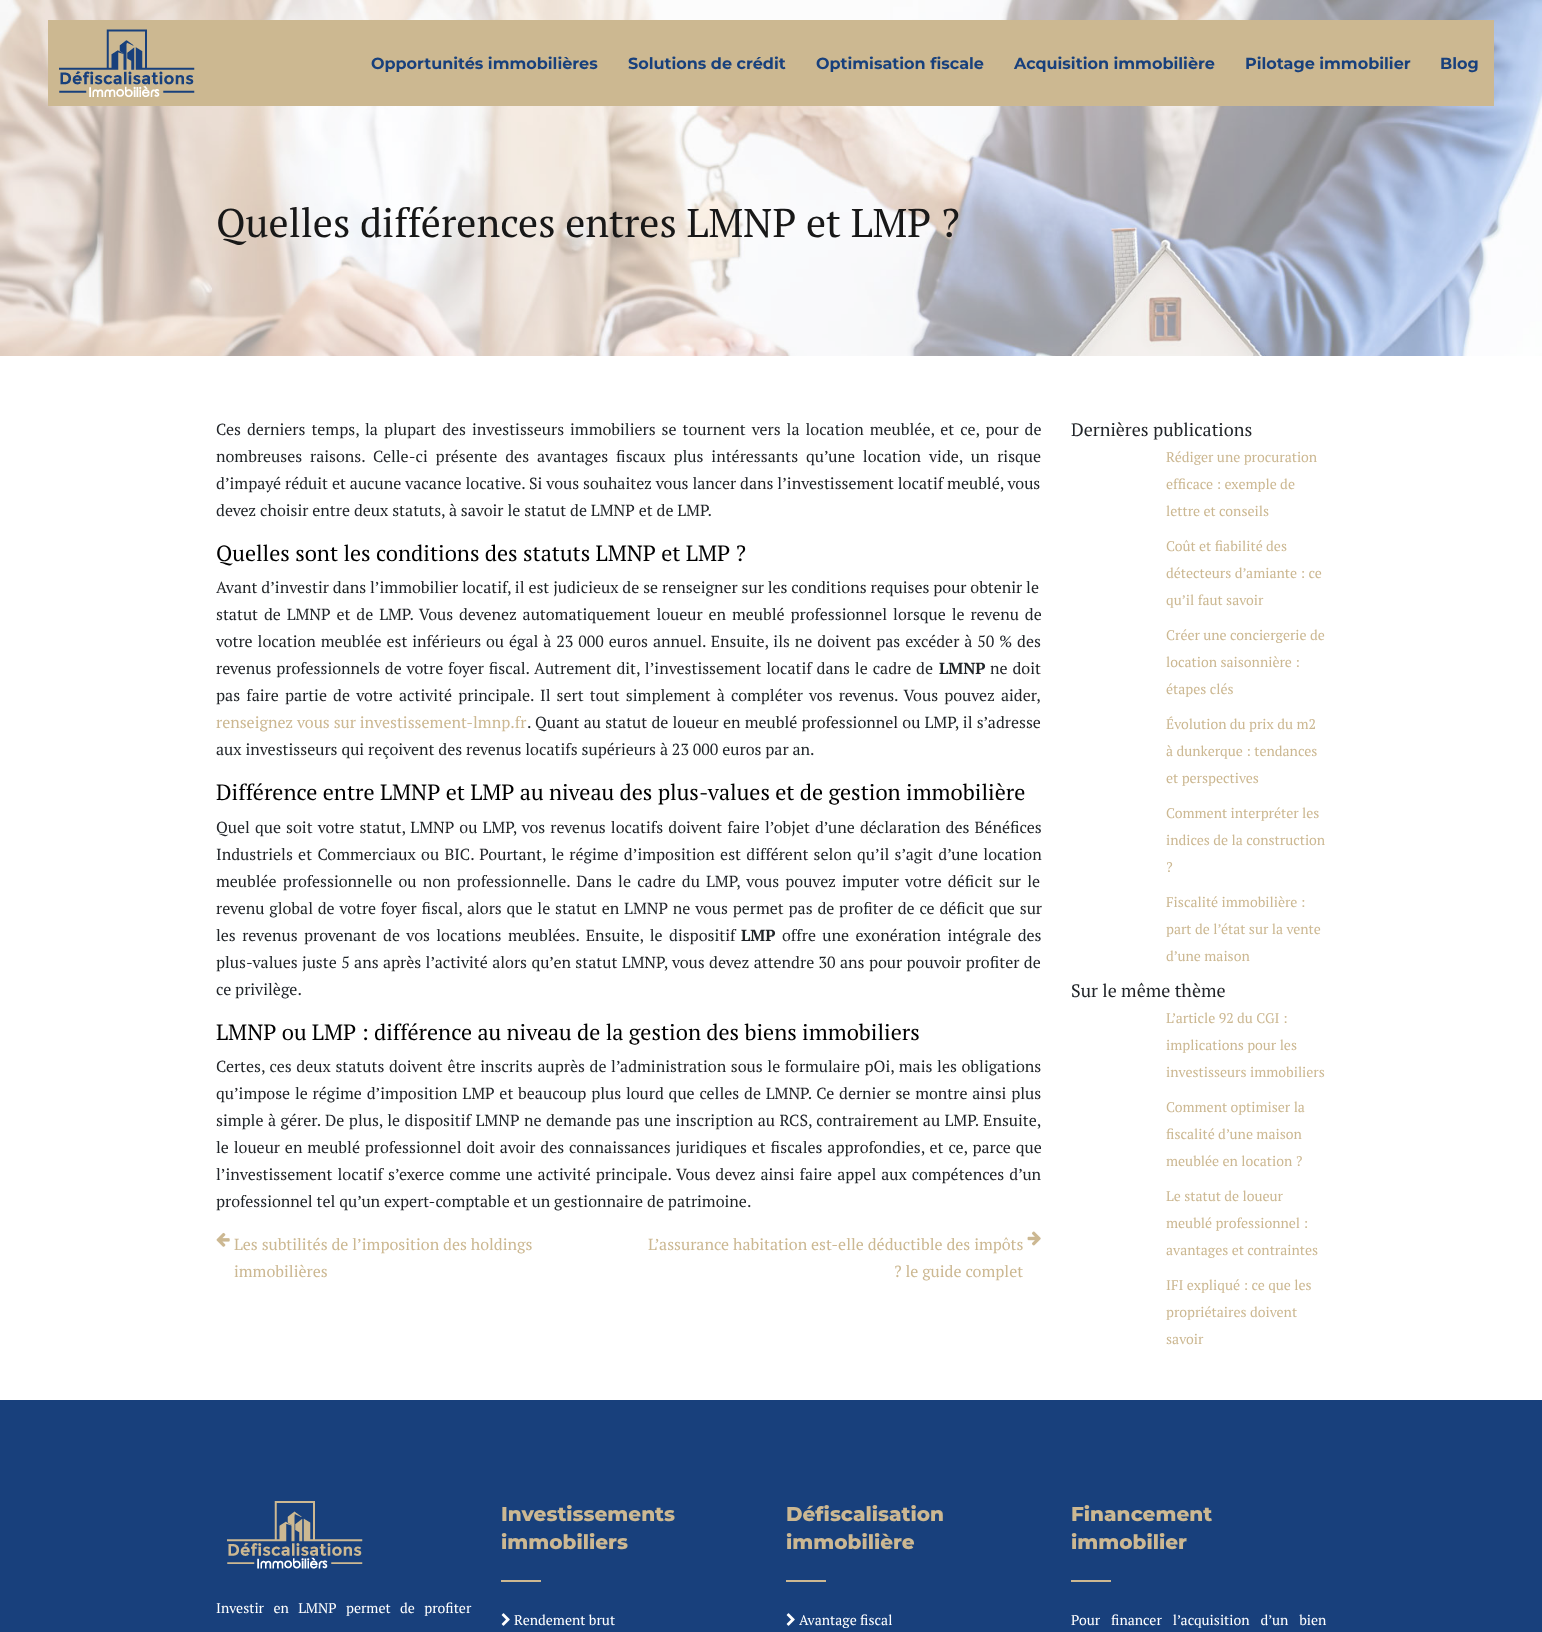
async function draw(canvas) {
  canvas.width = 1542;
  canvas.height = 1632;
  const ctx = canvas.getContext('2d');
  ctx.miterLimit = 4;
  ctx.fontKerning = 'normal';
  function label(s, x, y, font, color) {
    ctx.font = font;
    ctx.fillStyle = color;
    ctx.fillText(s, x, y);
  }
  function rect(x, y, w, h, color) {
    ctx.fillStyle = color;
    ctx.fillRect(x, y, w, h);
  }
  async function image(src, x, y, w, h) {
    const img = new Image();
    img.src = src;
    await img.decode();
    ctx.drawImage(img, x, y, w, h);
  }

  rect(0, 0, 1542, 1632, '#fff');
  await image('assets/img2.png', 0, 0, 1542, 356);
  rect(48, 20, 1446, 86, '#ccb891');
  await image('assets/img1.png', 59, 29, 136, 68);
  label('Opportunités immobilières', 371, 69, 'bold 16px Montserrat', '#18407c');
  label('Solutions de crédit', 628, 69, 'bold 16px Montserrat', '#18407c');
  label('Optimisation fiscale', 816, 69, 'bold 16px Montserrat', '#18407c');
  label('Acquisition immobilière', 1014, 69, 'bold 16px Montserrat', '#18407c');
  label('Pilotage immobilier', 1245, 69, 'bold 16px Montserrat', '#18407c');
  label('Blog', 1440, 69, 'bold 16px Montserrat', '#18407c');
  label('Quelles différences entres LMNP et LMP ?', 216, 237, '40px PT Serif', '#181818');
  ctx.wordSpacing = '2.1px';
  label('Ces derniers temps, la plupart des investisseurs immobiliers se tournent vers la location meublée, et ce, pour de', 216, 435, '16px PT Serif', '#212529');
  ctx.wordSpacing = '4px';
  label('nombreuses raisons. Celle-ci présente des avantages fiscaux plus intéressants qu’une location vide, un risque', 216, 462, '16px PT Serif', '#212529');
  ctx.wordSpacing = '0px';
  label('d’impayé réduit et aucune vacance locative. Si vous souhaitez vous lancer dans l’investissement locatif meublé, vous', 216, 489, '16px PT Serif', '#212529');
  label('devez choisir entre deux statuts, à savoir le statut de LMNP et de LMP.', 216, 516, '16px PT Serif', '#212529');
  label('Quelles sont les conditions des statuts LMNP et LMP ?', 216, 561, '22px PT Serif', '#000');
  label('Avant d’investir dans l’immobilier locatif, il est judicieux de se renseigner sur les conditions requises pour obtenir le', 216, 593, '16px PT Serif', '#212529');
  ctx.wordSpacing = '2px';
  label('statut de LMNP et de LMP. Vous devenez automatiquement loueur en meublé professionnel lorsque le revenu de', 216, 620, '16px PT Serif', '#212529');
  ctx.wordSpacing = '1.05px';
  label('votre location meublée est inférieurs ou égal à 23 000 euros annuel. Ensuite, ils ne doivent pas excéder à 50 % des', 216, 647, '16px PT Serif', '#212529');
  ctx.wordSpacing = '1px';
  label('revenus professionnels de votre foyer fiscal. Autrement dit, l’investissement locatif dans le cadre de', 216, 674, '16px PT Serif', '#212529');
  ctx.wordSpacing = '0px';
  label('LMNP', 939, 674, 'bold 16px PT Serif', '#212529');
  ctx.wordSpacing = '1.05px';
  label('ne doit', 990, 674, '16px PT Serif', '#212529');
  ctx.wordSpacing = '2.25px';
  label('pas faire partie de votre activité principale. Il sert tout simplement à compléter vos revenus. Vous pouvez aider,', 216, 701, '16px PT Serif', '#212529');
  ctx.wordSpacing = '0px';
  label('renseignez vous sur investissement-lmnp.fr', 216, 728, '16px PT Serif', '#ccb892');
  ctx.wordSpacing = '0.3px';
  label('. Quant au statut de loueur en meublé professionnel ou LMP, il s’adresse', 527, 728, '16px PT Serif', '#212529');
  ctx.wordSpacing = '0px';
  label('aux investisseurs qui reçoivent des revenus locatifs supérieurs à 23 000 euros par an.', 216, 755, '16px PT Serif', '#212529');
  label('Différence entre LMNP et LMP au niveau des plus-values et de gestion immobilière', 216, 800, '22px PT Serif', '#000');
  ctx.wordSpacing = '1.2px';
  label('Quel que soit votre statut, LMNP ou LMP, vos revenus locatifs doivent faire l’objet d’une déclaration des Bénéfices', 216, 833, '16px PT Serif', '#212529');
  ctx.wordSpacing = '1.4px';
  label('Industriels et Commerciaux ou BIC. Pourtant, le régime d’imposition est différent selon qu’il s’agit d’une location', 216, 860, '16px PT Serif', '#212529');
  ctx.wordSpacing = '2.25px';
  label('meublée professionnelle ou non professionnelle. Dans le cadre du LMP, vous pouvez imputer votre déficit sur le', 216, 887, '16px PT Serif', '#212529');
  ctx.wordSpacing = '0.9px';
  label('revenu global de votre foyer fiscal, alors que le statut en LMNP ne vous permet pas de profiter de ce déficit que sur', 216, 914, '16px PT Serif', '#212529');
  ctx.wordSpacing = '2.5px';
  label('les revenus provenant de vos locations meublées. Ensuite, le dispositif', 216, 941, '16px PT Serif', '#212529');
  ctx.wordSpacing = '0px';
  label('LMP', 741, 941, 'bold 16px PT Serif', '#212529');
  ctx.wordSpacing = '2.5px';
  label('offre une exonération intégrale des', 782, 941, '16px PT Serif', '#212529');
  ctx.wordSpacing = '0.5px';
  label('plus-values juste 5 ans après l’activité alors qu’en statut LMNP, vous devez attendre 30 ans pour pouvoir profiter de', 216, 968, '16px PT Serif', '#212529');
  ctx.wordSpacing = '0px';
  label('ce privilège.', 216, 995, '16px PT Serif', '#212529');
  label('LMNP ou LMP : différence au niveau de la gestion des biens immobiliers', 216, 1040, '22px PT Serif', '#000');
  ctx.wordSpacing = '0.75px';
  label('Certes, ces deux statuts doivent être inscrits auprès de l’administration sous le formulaire pOi, mais les obligations', 216, 1072, '16px PT Serif', '#212529');
  ctx.wordSpacing = '0.9px';
  label('qu’impose le régime d’imposition LMP et beaucoup plus lourd que celles de LMNP. Ce dernier se montre ainsi plus', 216, 1099, '16px PT Serif', '#212529');
  ctx.wordSpacing = '0.6px';
  label('simple à gérer. De plus, le dispositif LMNP ne demande pas une inscription au RCS, contrairement au LMP. Ensuite,', 216, 1126, '16px PT Serif', '#212529');
  ctx.wordSpacing = '1px';
  label('le loueur en meublé professionnel doit avoir des connaissances juridiques et fiscales approfondies, et ce, parce que', 216, 1153, '16px PT Serif', '#212529');
  ctx.wordSpacing = '1.1px';
  label('l’investissement locatif s’exerce comme une activité principale. Vous devez ainsi faire appel aux compétences d’un', 216, 1180, '16px PT Serif', '#212529');
  ctx.wordSpacing = '0px';
  label('professionnel tel qu’un expert-comptable et un gestionnaire de patrimoine.', 216, 1207, '16px PT Serif', '#212529');
  await image('assets/img3.png', 216, 1232, 14, 15);
  label('Les subtilités de l’imposition des holdings', 234, 1250, '16px PT Serif', '#ccb892');
  label('immobilières', 234, 1277, '16px PT Serif', '#ccb892');
  label('L’assurance habitation est-elle déductible des impôts', 648, 1250, '16px PT Serif', '#ccb892');
  await image('assets/img4.png', 1027, 1231, 14, 15);
  label('? le guide complet', 894, 1277, '16px PT Serif', '#ccb892');
  label('Dernières publications', 1071, 436, '18px PT Serif', '#212529');
  label('Rédiger une procuration', 1166, 462, '14px PT Serif', '#ccb892');
  label('efficace : exemple de', 1166, 489, '14px PT Serif', '#ccb892');
  label('lettre et conseils', 1166, 516, '14px PT Serif', '#ccb892');
  label('Coût et fiabilité des', 1166, 551, '14px PT Serif', '#ccb892');
  label('détecteurs d’amiante : ce', 1166, 578, '14px PT Serif', '#ccb892');
  label('qu’il faut savoir', 1166, 605, '14px PT Serif', '#ccb892');
  label('Créer une conciergerie de', 1166, 640, '14px PT Serif', '#ccb892');
  label('location saisonnière :', 1166, 667, '14px PT Serif', '#ccb892');
  label('étapes clés', 1166, 694, '14px PT Serif', '#ccb892');
  label('Évolution du prix du m2', 1166, 729, '14px PT Serif', '#ccb892');
  label('à dunkerque : tendances', 1166, 756, '14px PT Serif', '#ccb892');
  label('et perspectives', 1166, 783, '14px PT Serif', '#ccb892');
  label('Comment interpréter les', 1166, 818, '14px PT Serif', '#ccb892');
  label('indices de la construction', 1166, 845, '14px PT Serif', '#ccb892');
  label('?', 1166, 872, '14px PT Serif', '#ccb892');
  label('Fiscalité immobilière :', 1166, 907, '14px PT Serif', '#ccb892');
  label('part de l’état sur la vente', 1166, 934, '14px PT Serif', '#ccb892');
  label('d’une maison', 1166, 961, '14px PT Serif', '#ccb892');
  label('Sur le même thème', 1071, 997, '18px PT Serif', '#212529');
  label('L’article 92 du CGI :', 1166, 1023, '14px PT Serif', '#ccb892');
  label('implications pour les', 1166, 1050, '14px PT Serif', '#ccb892');
  label('investisseurs immobiliers', 1166, 1077, '14px PT Serif', '#ccb892');
  label('Comment optimiser la', 1166, 1112, '14px PT Serif', '#ccb892');
  label('fiscalité d’une maison', 1166, 1139, '14px PT Serif', '#ccb892');
  label('meublée en location ?', 1166, 1166, '14px PT Serif', '#ccb892');
  label('Le statut de loueur', 1166, 1201, '14px PT Serif', '#ccb892');
  label('meublé professionnel :', 1166, 1228, '14px PT Serif', '#ccb892');
  label('avantages et contraintes', 1166, 1255, '14px PT Serif', '#ccb892');
  label('IFI expliqué : ce que les', 1166, 1290, '14px PT Serif', '#ccb892');
  label('propriétaires doivent', 1166, 1317, '14px PT Serif', '#ccb892');
  label('savoir', 1166, 1344, '14px PT Serif', '#ccb892');
  rect(0, 1400, 1542, 232, '#18407c');
  await image('assets/img5.png', 227, 1501, 136, 68);
  ctx.wordSpacing = '6px';
  label('Investir en LMNP permet de profiter', 216, 1613, '14px PT Serif', '#fff');
  ctx.wordSpacing = '0px';
  label('Investissements', 501, 1521, '800 20px Montserrat', '#ccb892');
  label('immobiliers', 501, 1549, '800 20px Montserrat', '#ccb892');
  rect(501, 1580, 40, 2, '#ccb892');
  await image('assets/img6.png', 501, 1613, 9, 13);
  label('Rendement brut', 514, 1625, '14px PT Serif', '#fff');
  label('Défiscalisation', 786, 1521, '800 20px Montserrat', '#ccb892');
  label('immobilière', 786, 1549, '800 20px Montserrat', '#ccb892');
  rect(786, 1580, 40, 2, '#ccb892');
  await image('assets/img6.png', 786, 1613, 9, 13);
  label('Avantage fiscal', 799, 1625, '14px PT Serif', '#fff');
  label('Financement', 1071, 1521, '800 20px Montserrat', '#ccb892');
  label('immobilier', 1071, 1549, '800 20px Montserrat', '#ccb892');
  rect(1071, 1580, 40, 2, '#ccb892');
  ctx.wordSpacing = '7.5px';
  label('Pour financer l’acquisition d’un bien', 1071, 1625, '14px PT Serif', '#fff');
}

draw(document.querySelector('canvas'));
